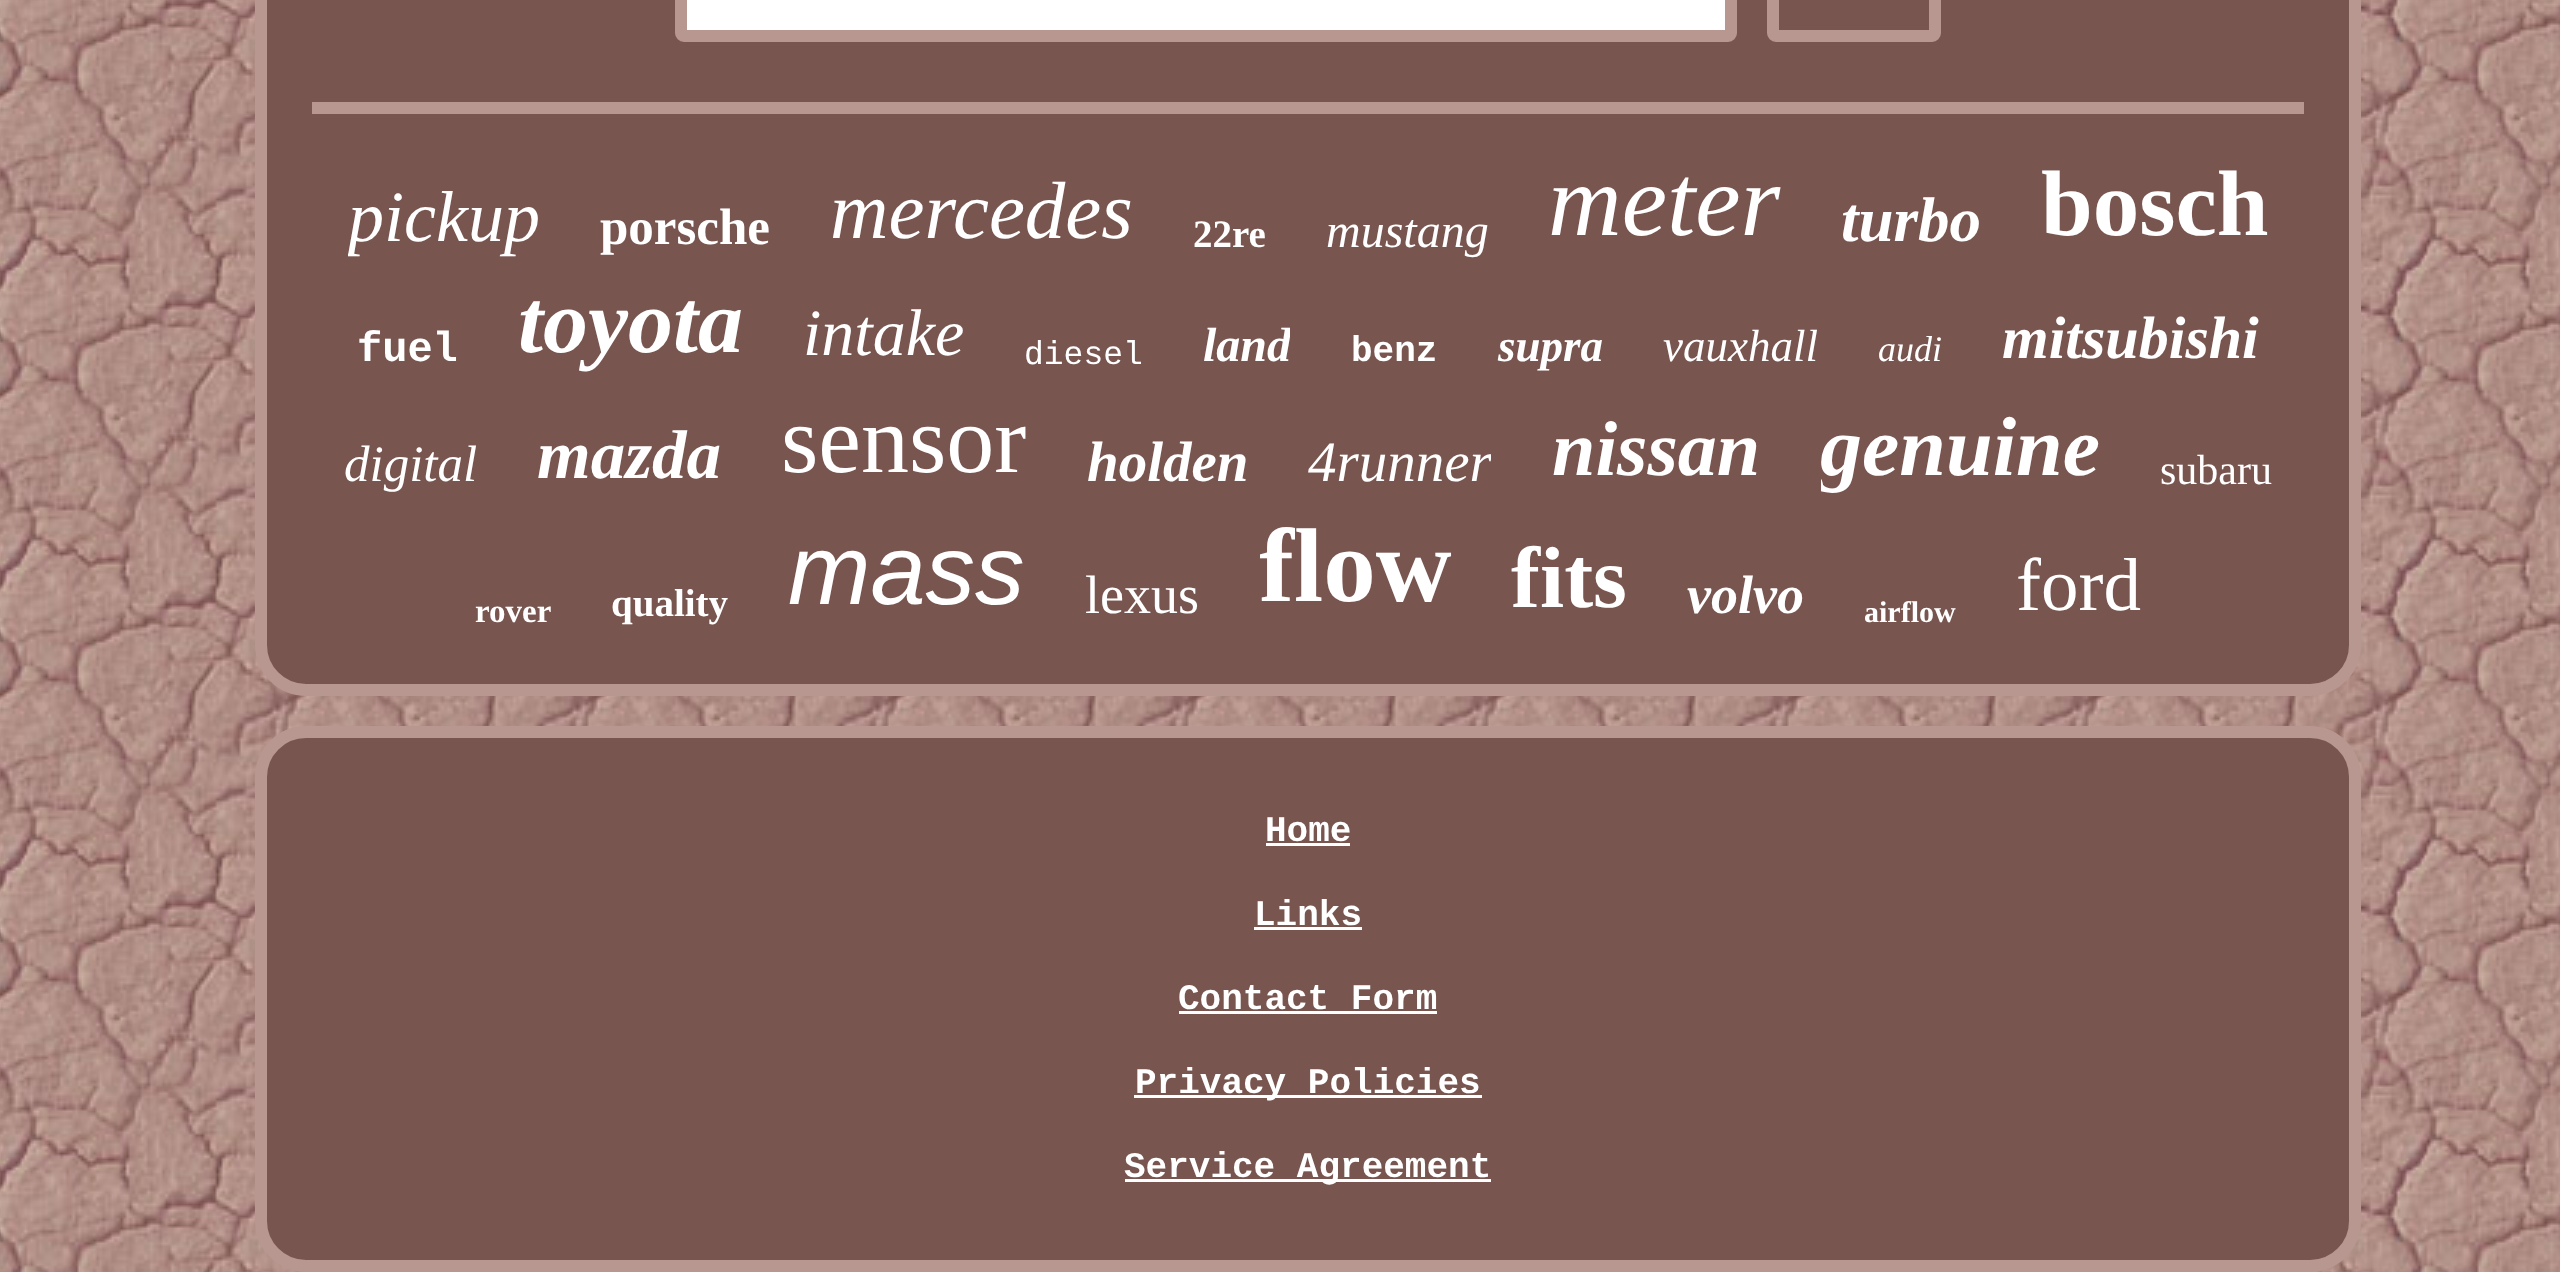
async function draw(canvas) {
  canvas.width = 2560;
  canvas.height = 1272;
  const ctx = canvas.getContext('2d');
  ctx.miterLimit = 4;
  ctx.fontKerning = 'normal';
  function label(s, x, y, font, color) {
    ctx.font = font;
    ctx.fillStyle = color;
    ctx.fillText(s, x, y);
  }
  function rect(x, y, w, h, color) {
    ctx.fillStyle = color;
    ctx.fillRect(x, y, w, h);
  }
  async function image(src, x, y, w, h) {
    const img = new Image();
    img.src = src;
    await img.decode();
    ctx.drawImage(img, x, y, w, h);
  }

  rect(0, 0, 2560, 1272, '#fff');
  await image('assets/img1.png', 0, 0, 2560, 1272);
  ctx.fillStyle = '#78554f';
  ctx.beginPath();
  ctx.roundRect(261, -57, 2094, 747, 45);
  ctx.fill();
  ctx.strokeStyle = '#b89790';
  ctx.lineWidth = 12;
  ctx.stroke();
  ctx.fillStyle = '#fff';
  ctx.beginPath();
  ctx.roundRect(681, -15, 1050, 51, 3);
  ctx.fill();
  ctx.stroke();
  ctx.beginPath();
  ctx.roundRect(1773, -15, 162, 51, 3);
  ctx.stroke();
  rect(312, 102, 1992, 12, '#b89790');
  ctx.save();
  ctx.beginPath();
  ctx.rect(348, 177, 192, 81);
  ctx.clip();
  label('pickup', 348, 241, 'italic 72px Liberation Serif', '#fff');
  ctx.restore();
  label('porsche', 600, 244, 'bold 51px Liberation Serif', '#fff');
  label('mercedes', 830, 238, 'italic 81px Liberation Serif', '#fff');
  label('22re', 1193, 247, 'bold 39px Liberation Serif', '#fff');
  label('mustang', 1326, 247, 'italic 48px Liberation Serif', '#fff');
  label('meter', 1548, 235, 'italic 102px Liberation Serif', '#fff');
  label('turbo', 1841, 241, 'italic bold 63px Liberation Serif', '#fff');
  label('bosch', 2041, 235, 'bold 93px Liberation Serif', '#fff');
  label('fuel', 357, 361, 'bold 42px Liberation Mono', '#fff');
  label('toyota', 518, 352, 'italic bold 90px Liberation Serif', '#fff');
  label('intake', 803, 355, 'italic 66px Liberation Serif', '#fff');
  label('diesel', 1024, 364, '33px Liberation Mono', '#fff');
  ctx.save();
  ctx.beginPath();
  ctx.rect(1203, 318, 87, 54);
  ctx.clip();
  label('land', 1203, 361, 'italic bold 48px Liberation Serif', '#fff');
  ctx.restore();
  label('benz', 1351, 361, 'bold 36px Liberation Mono', '#fff');
  label('supra', 1498, 361, 'italic bold 45px Liberation Serif', '#fff');
  label('vauxhall', 1663, 361, 'italic 45px Liberation Serif', '#fff');
  label('audi', 1878, 361, 'italic 36px Liberation Serif', '#fff');
  label('mitsubishi', 2002, 358, 'italic bold 60px Liberation Serif', '#fff');
  label('digital', 344, 481, 'italic 51px Liberation Serif', '#fff');
  label('mazda', 537, 478, 'italic bold 69px Liberation Serif', '#fff');
  label('sensor', 781, 472, '96px Liberation Serif', '#fff');
  label('holden', 1087, 481, 'italic bold 57px Liberation Serif', '#fff');
  ctx.save();
  ctx.beginPath();
  ctx.rect(1308, 429, 183, 66);
  ctx.clip();
  label('4runner', 1308, 481, 'italic 57px Liberation Serif', '#fff');
  ctx.restore();
  label('nissan', 1552, 475, 'italic bold 78px Liberation Serif', '#fff');
  ctx.save();
  ctx.beginPath();
  ctx.rect(1821, 399, 279, 96);
  ctx.clip();
  label('genuine', 1820, 475, 'italic bold 84px Liberation Serif', '#fff');
  ctx.restore();
  label('subaru', 2160, 484, '42px Liberation Serif', '#fff');
  label('rover', 475, 622, 'bold 33px Liberation Serif', '#fff');
  label('quality', 611, 616, 'bold 39px Liberation Serif', '#fff');
  label('mass', 788, 604, 'italic 99px Liberation Sans', '#fff');
  label('lexus', 1085, 613, '54px Liberation Serif', '#fff');
  ctx.save();
  ctx.beginPath();
  ctx.rect(1260, 507, 192, 120);
  ctx.clip();
  label('flow', 1259, 601, 'bold 105px Liberation Serif', '#fff');
  ctx.restore();
  label('fits', 1511, 607, 'bold 87px Liberation Serif', '#fff');
  label('volvo', 1687, 613, 'italic bold 54px Liberation Serif', '#fff');
  label('airflow', 1864, 622, 'bold 30px Liberation Serif', '#fff');
  label('ford', 2016, 610, '75px Liberation Serif', '#fff');
  ctx.fillStyle = '#78554f';
  ctx.beginPath();
  ctx.roundRect(261, 732, 2094, 534, 45);
  ctx.fill();
  ctx.stroke();
  label('Home', 1265, 841, 'bold 36px Liberation Mono', '#fff');
  rect(1266, 843, 84, 3, '#fff');
  label('Links', 1254, 925, 'bold 36px Liberation Mono', '#fff');
  rect(1254, 927, 108, 3, '#fff');
  label('Contact Form', 1178, 1009, 'bold 36px Liberation Mono', '#fff');
  rect(1179, 1011, 258, 3, '#fff');
  rect(1134, 1095, 348, 3, '#fff');
  label('Privacy Policies', 1135, 1093, 'bold 36px Liberation Mono', '#fff');
  rect(1125, 1179, 366, 3, '#fff');
  label('Service Agreement', 1124, 1177, 'bold 36px Liberation Mono', '#fff');
}

draw(document.querySelector('canvas'));
